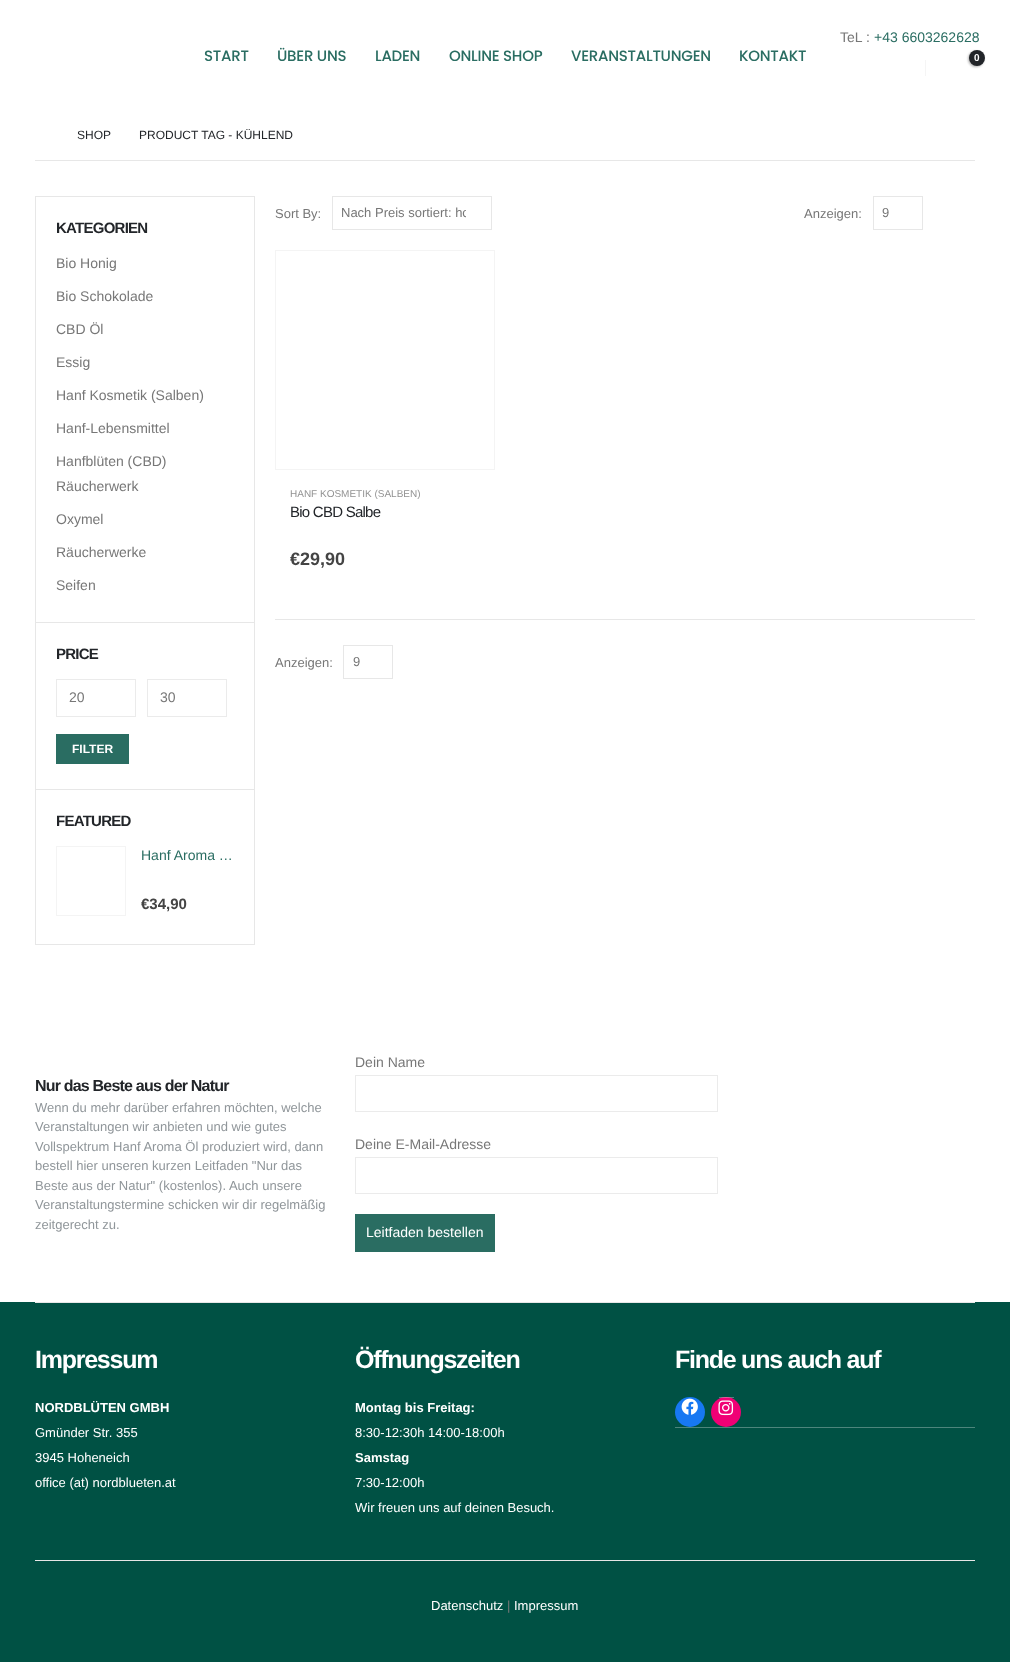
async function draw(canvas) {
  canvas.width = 1010;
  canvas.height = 1662;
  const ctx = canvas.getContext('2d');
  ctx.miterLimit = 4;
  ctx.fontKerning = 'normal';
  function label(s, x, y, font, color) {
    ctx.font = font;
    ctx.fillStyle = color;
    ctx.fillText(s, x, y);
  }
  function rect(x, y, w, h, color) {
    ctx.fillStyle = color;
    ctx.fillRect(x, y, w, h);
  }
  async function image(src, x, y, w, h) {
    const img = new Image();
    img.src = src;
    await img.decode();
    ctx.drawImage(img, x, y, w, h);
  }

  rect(0, 0, 1010, 1662, '#fff');
  ctx.letterSpacing = '-0.25px';
  label('START', 204, 61, '500 15px Poppins', '#2a6d62');
  label('ÜBER UNS', 277, 61, '500 15px Poppins', '#2a6d62');
  label('LADEN', 375, 61, '500 15px Poppins', '#2a6d62');
  label('ONLINE SHOP', 449, 61, '500 15px Poppins', '#2a6d62');
  label('VERANSTALTUNGEN', 571, 61, '500 15px Poppins', '#2a6d62');
  label('KONTAKT', 739, 61, '500 15px Poppins', '#2a6d62');
  ctx.letterSpacing = '0px';
  label('TeL :', 840, 42, '14px Liberation Sans', '#777');
  label('+43 6603262628', 874, 42, '14px Liberation Sans', '#2a6d62');
  ctx.fillStyle = '#0000004d';
  ctx.filter = 'blur(1px)';
  ctx.beginPath();
  ctx.roundRect(968, 51, 16, 16, 8);
  ctx.fill();
  ctx.filter = 'none';
  ctx.fillStyle = '#222529';
  ctx.beginPath();
  ctx.arc(977, 58, 8, 0, 2 * Math.PI);
  ctx.fill();
  label('0', 974, 61, 'bold 10px Liberation Sans', '#fff');
  rect(925, 60, 1, 16, '#f5f5f5');
  label('SHOP', 77, 139, '12px Liberation Sans', '#222529');
  label('PRODUCT TAG - KÜHLEND', 139, 139, '12px Liberation Sans', '#222529');
  rect(35, 160, 940, 1, '#e7e7e7');
  ctx.strokeStyle = '#e7e7e7';
  ctx.strokeRect(35.5, 196.5, 219, 748);
  rect(36, 622, 218, 1, '#e7e7e7');
  ctx.letterSpacing = '-0.75px';
  label('KATEGORIEN', 56, 233, 'bold 15px Liberation Sans', '#222529');
  ctx.letterSpacing = '0px';
  label('Bio Honig', 56, 268, '14px Liberation Sans', '#777');
  label('Bio Schokolade', 56, 301, '14px Liberation Sans', '#777');
  label('CBD Öl', 56, 334, '14px Liberation Sans', '#777');
  label('Essig', 56, 367, '14px Liberation Sans', '#777');
  label('Hanf Kosmetik (Salben)', 56, 400, '14px Liberation Sans', '#777');
  label('Hanf-Lebensmittel', 56, 433, '14px Liberation Sans', '#777');
  label('Hanfblüten (CBD)', 56, 466, '14px Liberation Sans', '#777');
  label('Räucherwerk', 56, 491, '14px Liberation Sans', '#777');
  label('Oxymel', 56, 524, '14px Liberation Sans', '#777');
  label('Räucherwerke', 56, 557, '14px Liberation Sans', '#777');
  label('Seifen', 56, 590, '14px Liberation Sans', '#777');
  rect(36, 789, 218, 1, '#e7e7e7');
  ctx.letterSpacing = '-0.75px';
  label('PRICE', 56, 659, 'bold 15px Liberation Sans', '#222529');
  ctx.strokeStyle = '#ebebeb';
  ctx.strokeRect(56.5, 679.5, 79, 37);
  ctx.letterSpacing = '0px';
  label('20', 69, 702, '14px Liberation Sans', '#777');
  ctx.strokeRect(147.5, 679.5, 79, 37);
  label('30', 160, 702, '14px Liberation Sans', '#777');
  rect(56, 734, 73, 30, '#2a6d62');
  label('FILTER', 72, 753, 'bold 12px Liberation Sans', '#fff');
  ctx.letterSpacing = '-0.75px';
  label('FEATURED', 56, 826, 'bold 15px Liberation Sans', '#222529');
  ctx.strokeStyle = '#f4f4f4';
  ctx.strokeRect(56.5, 846.5, 69, 69);
  ctx.letterSpacing = '0px';
  label('Hanf Aroma …', 141, 860, '14px Liberation Sans', '#2a6d62');
  label('€34,90', 141, 909, 'bold 15px Liberation Sans', '#444');
  label('Sort By:', 275, 218, '13px Liberation Sans', '#777');
  ctx.strokeStyle = '#e7e7e7';
  ctx.strokeRect(332.5, 196.5, 159, 33);
  ctx.save();
  ctx.beginPath();
  ctx.rect(341, 204, 125, 18);
  ctx.clip();
  label('Nach Preis sortiert: ho', 341, 217, '13px Liberation Sans', '#777');
  ctx.restore();
  label('Anzeigen:', 804, 218, '13px Liberation Sans', '#777');
  ctx.strokeRect(873.5, 196.5, 49, 33);
  label('9', 882, 217, '13px Liberation Sans', '#777');
  ctx.strokeStyle = '#f4f4f4';
  ctx.strokeRect(275.5, 250.5, 219, 219);
  label('HANF KOSMETIK (SALBEN)', 290, 497, '10px Liberation Sans', '#929292');
  ctx.letterSpacing = '-0.75px';
  label('Bio CBD Salbe', 290, 517, '15px Liberation Sans', '#222529');
  ctx.letterSpacing = '0px';
  label('€29,90', 290, 565, 'bold 18px Liberation Sans', '#444');
  rect(275, 619, 700, 1, '#e7e7e7');
  label('Anzeigen:', 275, 667, '13px Liberation Sans', '#777');
  ctx.strokeStyle = '#e7e7e7';
  ctx.strokeRect(343.5, 645.5, 49, 33);
  label('9', 353, 666, '13px Liberation Sans', '#777');
  ctx.letterSpacing = '-0.8px';
  label('Nur das Beste aus der Natur', 35, 1091, 'bold 16px Liberation Sans', '#222529');
  ctx.letterSpacing = '0px';
  label('Wenn du mehr darüber erfahren möchten, welche', 35, 1112, '13px Liberation Sans', '#90969a');
  label('Veranstaltungen wir anbieten und wie gutes', 35, 1131, '13px Liberation Sans', '#90969a');
  label('Vollspektrum Hanf Aroma Öl produziert wird, dann', 35, 1151, '13px Liberation Sans', '#90969a');
  label('bestell hier unseren kurzen Leitfaden "Nur das', 35, 1170, '13px Liberation Sans', '#90969a');
  label('Beste aus der Natur" (kostenlos). Auch unsere', 35, 1190, '13px Liberation Sans', '#90969a');
  label('Veranstaltungstermine schicken wir dir regelmäßig', 35, 1209, '13px Liberation Sans', '#90969a');
  label('zeitgerecht zu.', 35, 1229, '13px Liberation Sans', '#90969a');
  label('Dein Name', 355, 1067, '14px Liberation Sans', '#777');
  ctx.strokeStyle = '#ebebeb';
  ctx.strokeRect(355.5, 1075.5, 362, 36);
  label('Deine E-Mail-Adresse', 355, 1149, '14px Liberation Sans', '#777');
  ctx.strokeRect(355.5, 1157.5, 362, 36);
  rect(355, 1214, 140, 38, '#2a6d62');
  label('Leitfaden bestellen', 366, 1237, '14px Liberation Sans', '#fff');
  rect(0, 1302, 1010, 360, '#005144');
  rect(35, 1302, 940, 1, '#e7e7e7');
  ctx.letterSpacing = '-1.25px';
  label('Impressum', 35, 1368, 'bold 25px Liberation Sans', '#fff');
  ctx.letterSpacing = '0px';
  label('NORDBLÜTEN GMBH', 35, 1412, 'bold 13px Liberation Sans', '#fff');
  label('Gmünder Str. 355', 35, 1437, '13px Liberation Sans', '#fff');
  label('3945 Hoheneich', 35, 1462, '13px Liberation Sans', '#fff');
  label('office (at) nordblueten.at', 35, 1487, '13px Liberation Sans', '#fff');
  ctx.letterSpacing = '-1.25px';
  label('Öffnungszeiten', 355, 1368, 'bold 25px Liberation Sans', '#fff');
  ctx.letterSpacing = '0px';
  label('Montag bis Freitag:', 355, 1412, 'bold 13px Liberation Sans', '#fff');
  label('8:30-12:30h 14:00-18:00h', 355, 1437, '13px Liberation Sans', '#fff');
  label('Samstag', 355, 1462, 'bold 13px Liberation Sans', '#fff');
  label('7:30-12:00h', 355, 1487, '13px Liberation Sans', '#fff');
  label('Wir freuen uns auf deinen Besuch.', 355, 1512, '13px Liberation Sans', '#fff');
  ctx.letterSpacing = '-1.25px';
  label('Finde uns auch auf', 675, 1368, 'bold 25px Liberation Sans', '#fff');
  rect(675, 1427, 300, 1, '#4d857c');
  ctx.fillStyle = '#1778f2';
  ctx.beginPath();
  ctx.arc(690, 1412, 15, 0, 2 * Math.PI);
  ctx.fill();
  await image('assets/img1.png', 681, 1398, 17, 17);
  ctx.fillStyle = '#f00075';
  ctx.beginPath();
  ctx.arc(726, 1412, 15, 0, 2 * Math.PI);
  ctx.fill();
  rect(719, 1397, 15, 1, '#ffffff4d');
  await image('assets/img2.png', 718, 1400, 16, 16);
  rect(35, 1560, 940, 1, '#e7e7e7');
  ctx.letterSpacing = '0px';
  label('Datenschutz', 431, 1610, '13px Liberation Sans', '#fff');
  label('|', 507, 1610, '13px Liberation Sans', '#777');
  label('Impressum', 514, 1610, '13px Liberation Sans', '#fff');
}

draw(document.querySelector('canvas'));
